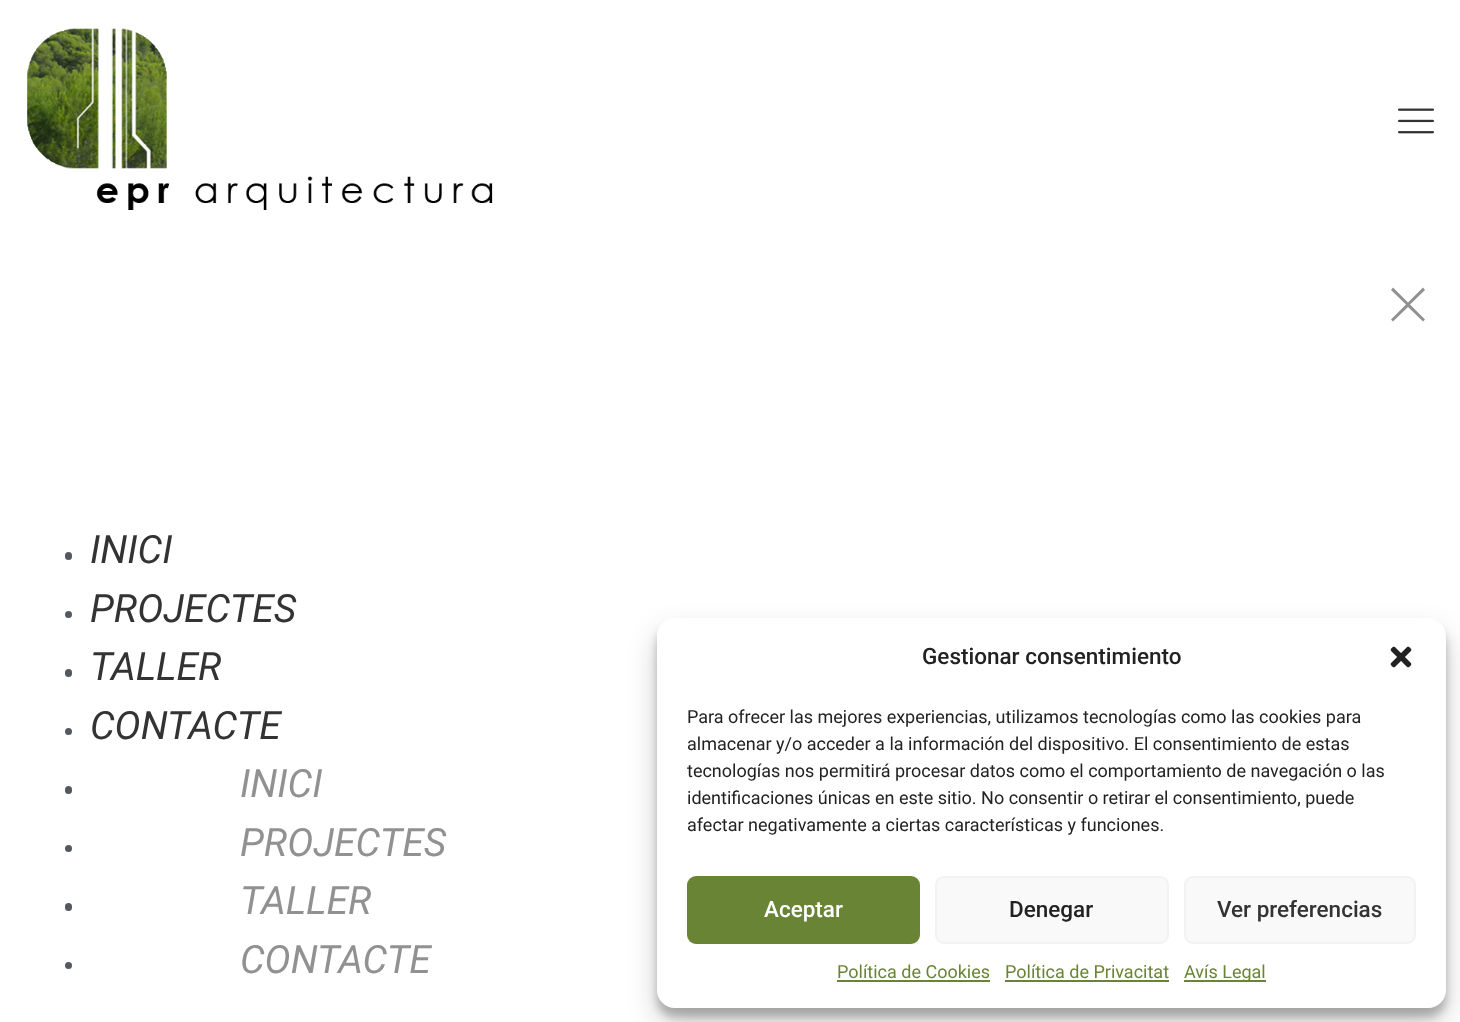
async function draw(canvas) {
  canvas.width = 1460;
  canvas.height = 1022;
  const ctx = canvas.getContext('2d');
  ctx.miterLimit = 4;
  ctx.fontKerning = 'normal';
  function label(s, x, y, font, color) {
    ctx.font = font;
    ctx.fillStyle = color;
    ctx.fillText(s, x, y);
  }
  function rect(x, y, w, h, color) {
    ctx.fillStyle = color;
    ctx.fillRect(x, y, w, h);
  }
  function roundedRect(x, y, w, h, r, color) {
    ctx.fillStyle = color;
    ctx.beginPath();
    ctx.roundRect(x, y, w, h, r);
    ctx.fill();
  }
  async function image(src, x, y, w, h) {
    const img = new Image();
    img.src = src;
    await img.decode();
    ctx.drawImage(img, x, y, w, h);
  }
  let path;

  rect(0, 0, 1460, 1022, '#fff');
  await image('assets/img1.png', 27, 28, 466, 182);
  await image('assets/img2.png', 1398, 108, 36, 26);
  ctx.fillStyle = '#919191';
  path = new Path2D('M1425 319.5L1410 304.5L1425 290L1423 287.5L1408 302.5L1393 287.5L1391 290L1406 304.5L1391 319.5L1393 321.5L1408 307L1423 321.5Z');
  ctx.fill(path);
  roundedRect(65, 552, 7, 8, 3.5, '#54595f');
  label('INICI', 90, 563, 'italic 39px Roboto', '#333');
  ctx.fillStyle = '#54595f';
  ctx.beginPath();
  ctx.arc(68.5, 614.5, 3.5, 0, 2 * Math.PI);
  ctx.fill();
  label('PROJECTES', 90, 622, 'italic 39px Roboto', '#333');
  roundedRect(65, 669, 7, 8, 3.5, '#54595f');
  label('TALLER', 90, 680, 'italic 39px Roboto', '#333');
  ctx.fillStyle = '#54595f';
  ctx.beginPath();
  ctx.arc(68.5, 731.5, 3.5, 0, 2 * Math.PI);
  ctx.fill();
  label('CONTACTE', 90, 739, 'italic 39px Roboto', '#333');
  roundedRect(65, 786, 7, 8, 3.5, '#54595f');
  label('INICI', 240, 797, 'italic 39px Roboto', '#919191');
  ctx.fillStyle = '#54595f';
  ctx.beginPath();
  ctx.arc(68.5, 848.5, 3.5, 0, 2 * Math.PI);
  ctx.fill();
  label('PROJECTES', 240, 856, 'italic 39px Roboto', '#919191');
  roundedRect(65, 903, 7, 8, 3.5, '#54595f');
  label('TALLER', 240, 914, 'italic 39px Roboto', '#919191');
  ctx.fillStyle = '#54595f';
  ctx.beginPath();
  ctx.arc(68.5, 965.5, 3.5, 0, 2 * Math.PI);
  ctx.fill();
  label('CONTACTE', 240, 973, 'italic 39px Roboto', '#919191');
  ctx.fillStyle = '#0000003b';
  ctx.filter = 'blur(4.5px)';
  ctx.beginPath();
  ctx.roundRect(657, 627, 789, 390, 18);
  ctx.fill();
  ctx.filter = 'none';
  ctx.fillStyle = '#00000030';
  ctx.filter = 'blur(15px)';
  ctx.beginPath();
  ctx.roundRect(657, 633, 789, 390, 18);
  ctx.fill();
  ctx.filter = 'none';
  roundedRect(657, 618, 789, 390, 18, '#fff');
  label('Gestionar consentimiento', 922, 664, '500 22.5px Roboto', '#222');
  await image('assets/img3.png', 1390, 646, 22, 22);
  label('Para ofrecer las mejores experiencias, utilizamos tecnologías como las cookies para', 687, 723, '18px Roboto', '#222');
  label('almacenar y/o acceder a la información del dispositivo. El consentimiento de estas', 687, 750, '18px Roboto', '#222');
  label('tecnologías nos permitirá procesar datos como el comportamiento de navegación o las', 687, 777, '18px Roboto', '#222');
  label('identificaciones únicas en este sitio. No consentir o retirar el consentimiento, puede', 687, 804, '18px Roboto', '#222');
  label('afectar negativamente a ciertas características y funciones.', 687, 831, '18px Roboto', '#222');
  ctx.fillStyle = '#6a8435';
  ctx.beginPath();
  ctx.roundRect(688, 877, 231, 66, 8);
  ctx.fill();
  ctx.strokeStyle = '#6a8435';
  ctx.lineWidth = 2;
  ctx.stroke();
  label('Aceptar', 764, 917, '500 22.5px Roboto', '#fff');
  ctx.fillStyle = '#f9f9f9';
  ctx.beginPath();
  ctx.roundRect(936, 877, 232, 66, 8);
  ctx.fill();
  ctx.strokeStyle = '#f2f2f2';
  ctx.stroke();
  label('Denegar', 1009, 917, '500 22.5px Roboto', '#222');
  ctx.fillStyle = '#f9f9f9';
  ctx.beginPath();
  ctx.roundRect(1185, 877, 230, 66, 8);
  ctx.fill();
  ctx.stroke();
  label('Ver preferencias', 1217, 917, '500 22.5px Roboto', '#333');
  label('Política de Cookies', 837, 978, '18px Roboto', '#6a8435');
  rect(837, 980, 153, 2, '#6a8435');
  label('Política de Privacitat', 1005, 978, '18px Roboto', '#6a8435');
  rect(1005, 980, 164, 2, '#6a8435');
  rect(1184, 980, 82, 2, '#6a8435');
  label('Avís Legal', 1184, 978, '18px Roboto', '#6a8435');
}

draw(document.querySelector('canvas'));
